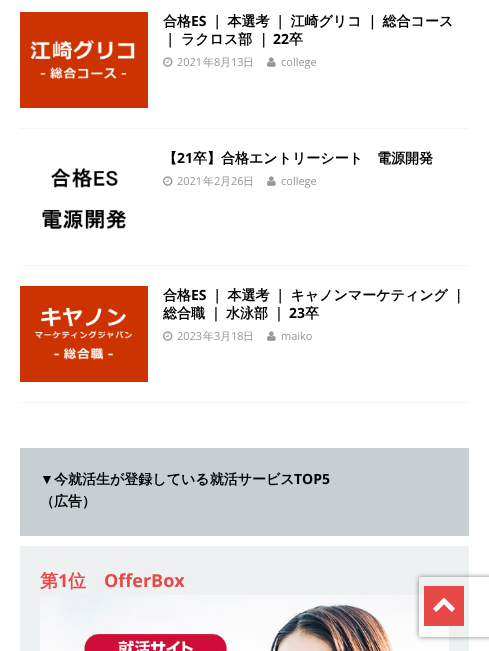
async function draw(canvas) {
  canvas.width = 489;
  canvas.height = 651;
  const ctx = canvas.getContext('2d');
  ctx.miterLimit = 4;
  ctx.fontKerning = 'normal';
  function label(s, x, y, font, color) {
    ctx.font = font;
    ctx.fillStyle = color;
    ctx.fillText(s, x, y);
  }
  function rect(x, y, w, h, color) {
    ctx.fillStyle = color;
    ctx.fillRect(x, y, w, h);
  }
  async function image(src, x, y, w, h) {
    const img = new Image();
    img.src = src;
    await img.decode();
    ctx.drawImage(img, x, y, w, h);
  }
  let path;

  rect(0, 0, 489, 651, '#fff');
  path = new Path2D('M20 128.5H469');
  ctx.strokeStyle = '#ebebeb';
  ctx.setLineDash([1, 1]);
  ctx.stroke(path);
  await image('assets/img1.png', 20, 12, 128, 96);
  label('合格', 163, 26, 'bold 14px WenQuanYi Zen Hei', '#000');
  label('ES', 191, 26, 'bold 14px Open Sans', '#000');
  ctx.wordSpacing = '-0.5px';
  label('｜ 本選考 ｜ 江崎グリコ ｜ 総合コース', 210, 26, 'bold 14px WenQuanYi Zen Hei', '#000');
  ctx.wordSpacing = '0px';
  label('｜ ラクロス部 ｜', 163, 44, 'bold 14px WenQuanYi Zen Hei', '#000');
  label('22', 273, 44, 'bold 14px Open Sans', '#000');
  label('卒', 289, 44, 'bold 14px WenQuanYi Zen Hei', '#000');
  await image('assets/img2.png', 163, 57, 10, 10);
  label('2021', 177, 66, '11px Open Sans', '#979797');
  label('年', 203, 66, '500 11px WenQuanYi Zen Hei', '#979797');
  label('8', 214, 66, '11px Open Sans', '#979797');
  label('月', 220, 66, '500 11px WenQuanYi Zen Hei', '#979797');
  label('13', 231, 66, '11px Open Sans', '#979797');
  label('日', 243, 66, '500 11px WenQuanYi Zen Hei', '#979797');
  await image('assets/img3.png', 267, 57, 9, 10);
  label('college', 281, 66, '11px Open Sans', '#979797');
  path = new Path2D('M20 265.5H469');
  ctx.stroke(path);
  label('【', 163, 163, 'bold 14px WenQuanYi Zen Hei', '#000');
  label('21', 177, 163, 'bold 14px Open Sans', '#000');
  label('卒】合格エントリーシート　電源開発', 193, 163, 'bold 14px WenQuanYi Zen Hei', '#000');
  await image('assets/img4.png', 42, 167, 84, 63);
  await image('assets/img2.png', 163, 176, 10, 10);
  label('2021', 177, 185, '11px Open Sans', '#979797');
  label('年', 203, 185, '500 11px WenQuanYi Zen Hei', '#979797');
  label('2', 214, 185, '11px Open Sans', '#979797');
  label('月', 220, 185, '500 11px WenQuanYi Zen Hei', '#979797');
  label('26', 231, 185, '11px Open Sans', '#979797');
  label('日', 243, 185, '500 11px WenQuanYi Zen Hei', '#979797');
  await image('assets/img3.png', 267, 176, 9, 10);
  label('college', 281, 185, '11px Open Sans', '#979797');
  path = new Path2D('M20 402.5H469');
  ctx.stroke(path);
  await image('assets/img5.png', 20, 286, 128, 96);
  label('合格', 163, 300, 'bold 14px WenQuanYi Zen Hei', '#000');
  label('ES', 191, 300, 'bold 14px Open Sans', '#000');
  ctx.wordSpacing = '-0.5px';
  label('｜ 本選考 ｜ キャノンマーケティング ｜', 210, 300, 'bold 14px WenQuanYi Zen Hei', '#000');
  label('総合職 ｜ 水泳部 ｜', 163, 318, 'bold 14px WenQuanYi Zen Hei', '#000');
  ctx.wordSpacing = '0px';
  label('23', 289, 318, 'bold 14px Open Sans', '#000');
  label('卒', 305, 318, 'bold 14px WenQuanYi Zen Hei', '#000');
  await image('assets/img2.png', 163, 331, 10, 10);
  label('2023', 177, 340, '11px Open Sans', '#979797');
  label('年', 203, 340, '500 11px WenQuanYi Zen Hei', '#979797');
  label('3', 214, 340, '11px Open Sans', '#979797');
  label('月', 220, 340, '500 11px WenQuanYi Zen Hei', '#979797');
  label('18', 231, 340, '11px Open Sans', '#979797');
  label('日', 243, 340, '500 11px WenQuanYi Zen Hei', '#979797');
  await image('assets/img3.png', 267, 331, 9, 10);
  label('maiko', 281, 340, '11px Open Sans', '#979797');
  rect(20, 448, 449, 88, '#c7cfd3');
  label('▼', 40, 484, 'bold 14px Liberation Sans', '#000');
  label('今就活生が登録している就活サービス', 54, 484, 'bold 14px WenQuanYi Zen Hei', '#000');
  label('TOP5', 294, 484, 'bold 14px Open Sans', '#000');
  label('（広告）', 40, 506, 'bold 14px WenQuanYi Zen Hei', '#000');
  rect(20, 546, 449, 105, '#eef1f2');
  label('第', 40, 587, 'bold 18px WenQuanYi Zen Hei', '#e64946');
  label('1', 58, 587, 'bold 18px Open Sans', '#e64946');
  label('位', 68, 587, 'bold 18px WenQuanYi Zen Hei', '#e64946');
  label('OfferBox', 104, 587, 'bold 18px Open Sans', '#e64946');
  await image('assets/img6.png', 40, 595, 409, 56);
  ctx.save();
  path = new Path2D('M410 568H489V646H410ZM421 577H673C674 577 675 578 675 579V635C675 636 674 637 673 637H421C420 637 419 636 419 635V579C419 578 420 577 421 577Z');
  ctx.clip(path, 'evenodd');
  ctx.fillStyle = '#808080';
  ctx.filter = 'blur(2.5px)';
  ctx.beginPath();
  ctx.roundRect(419, 577, 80, 60, 2);
  ctx.fill();
  ctx.filter = 'none';
  ctx.restore();
  rect(424, 586, 40, 40, '#e64946');
  await image('assets/img7.png', 433, 597, 22, 15);
}

draw(document.querySelector('canvas'));
